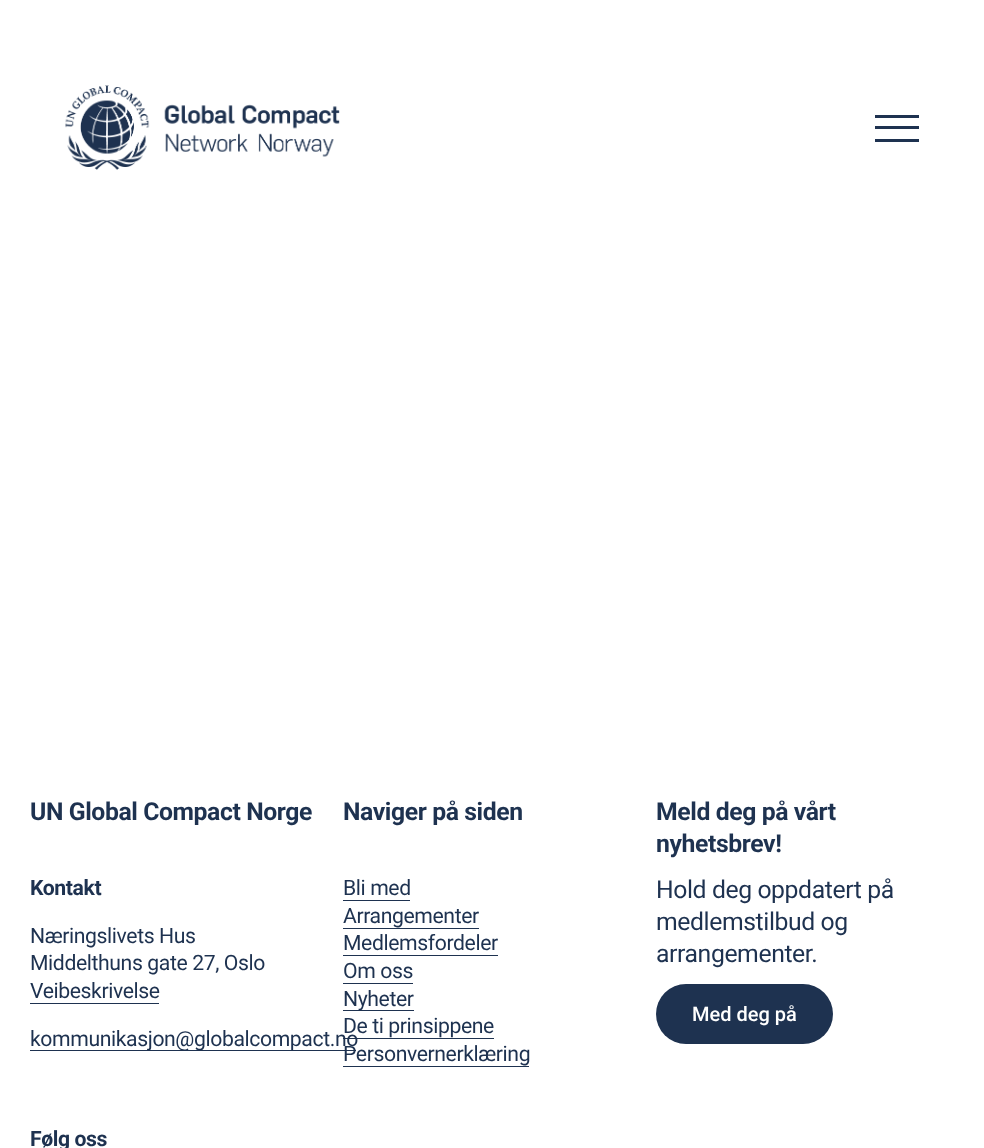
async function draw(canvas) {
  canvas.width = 984;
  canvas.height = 1148;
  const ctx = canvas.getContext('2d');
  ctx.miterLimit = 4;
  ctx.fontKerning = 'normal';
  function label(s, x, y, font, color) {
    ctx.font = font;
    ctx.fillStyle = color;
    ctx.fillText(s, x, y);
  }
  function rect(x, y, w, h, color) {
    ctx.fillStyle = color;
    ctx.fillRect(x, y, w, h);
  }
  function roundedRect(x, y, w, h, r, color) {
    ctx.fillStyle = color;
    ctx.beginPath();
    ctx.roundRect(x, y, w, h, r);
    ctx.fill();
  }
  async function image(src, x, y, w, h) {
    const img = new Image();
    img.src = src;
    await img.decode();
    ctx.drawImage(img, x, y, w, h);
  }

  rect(0, 0, 984, 1148, '#fff');
  await image('assets/img1.png', 65, 85, 275, 85);
  rect(875, 115, 44, 3, '#1e3250');
  rect(875, 126, 44, 3, '#1e3250');
  rect(875, 139, 44, 3, '#1e3250');
  ctx.letterSpacing = '-0.4px';
  label('UN Global Compact Norge', 30, 820, 'bold 24.75px Roboto', '#1e3250');
  label('Naviger på siden', 343, 820, 'bold 24.75px Roboto', '#1e3250');
  label('Meld deg på vårt', 656, 820, 'bold 24.75px Roboto', '#1e3250');
  label('nyhetsbrev!', 656, 852, 'bold 24.75px Roboto', '#1e3250');
  label('Kontakt', 30, 895, 'bold 21.2px Roboto', '#1e3250');
  label('Næringslivets Hus', 30, 943, '21.2px Roboto', '#1e3250');
  label('Middelthuns gate 27, Oslo', 30, 970, '21.2px Roboto', '#1e3250');
  rect(30, 1003, 129, 1, '#1e3250');
  label('Veibeskrivelse', 30, 998, '21.2px Roboto', '#1e3250');
  rect(30, 1050, 326, 1, '#1e3250');
  label('kommunikasjon@globalcompact.no', 30, 1046, '21.2px Roboto', '#1e3250');
  rect(343, 900, 67, 1, '#1e3250');
  label('Bli med', 343, 895, '21.2px Roboto', '#1e3250');
  rect(343, 928, 136, 1, '#1e3250');
  label('Arrangementer', 343, 923, '21.2px Roboto', '#1e3250');
  rect(343, 955, 155, 1, '#1e3250');
  label('Medlemsfordeler', 343, 950, '21.2px Roboto', '#1e3250');
  rect(343, 983, 70, 1, '#1e3250');
  label('Om oss', 343, 978, '21.2px Roboto', '#1e3250');
  rect(343, 1010, 71, 1, '#1e3250');
  label('Nyheter', 343, 1006, '21.2px Roboto', '#1e3250');
  rect(343, 1038, 151, 1, '#1e3250');
  label('De ti prinsippene', 343, 1033, '21.2px Roboto', '#1e3250');
  rect(343, 1066, 186, 1, '#1e3250');
  label('Personvernerklæring', 343, 1061, '21.2px Roboto', '#1e3250');
  label('Hold deg oppdatert på', 656, 898, '24.75px Roboto', '#1e3250');
  label('medlemstilbud og', 656, 930, '24.75px Roboto', '#1e3250');
  label('arrangementer.', 656, 962, '24.75px Roboto', '#1e3250');
  roundedRect(656, 984, 177, 60, 30, '#1e3250');
  ctx.letterSpacing = '0px';
  label('Med deg på', 692, 1021, '500 20px Roboto', '#fff');
  ctx.letterSpacing = '-0.4px';
  label('Følg oss', 30, 1146, 'bold 21.2px Roboto', '#1e3250');
}

draw(document.querySelector('canvas'));
